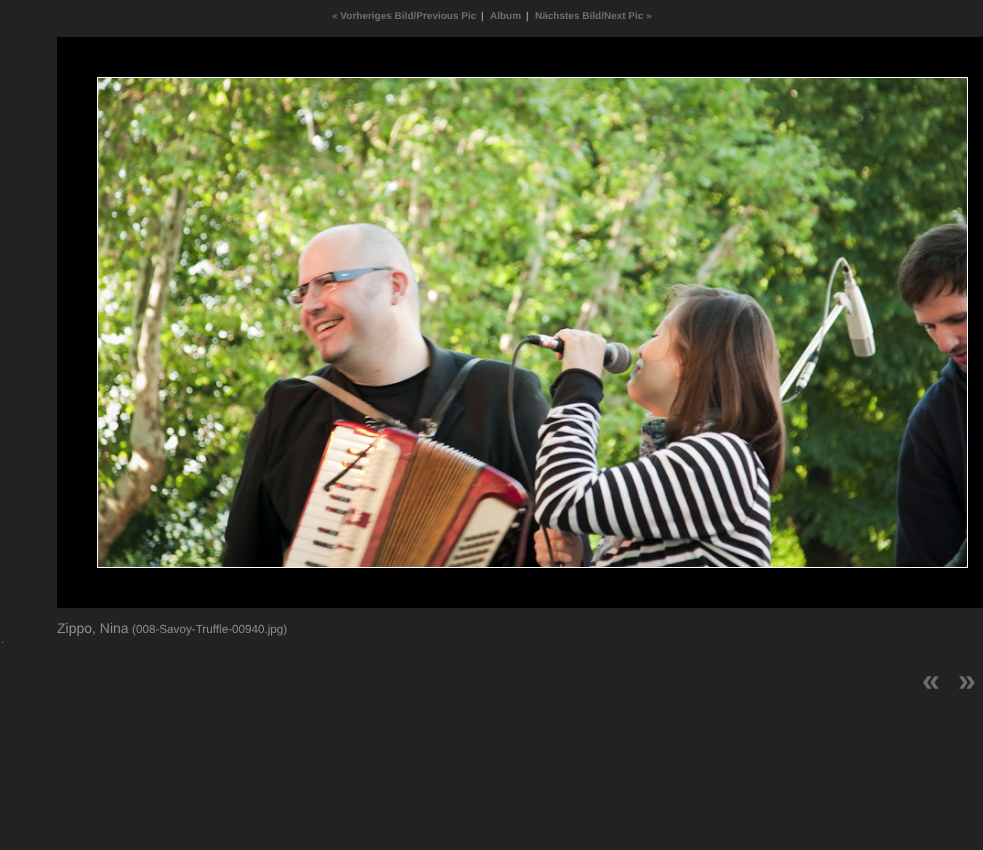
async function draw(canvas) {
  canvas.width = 983;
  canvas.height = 850;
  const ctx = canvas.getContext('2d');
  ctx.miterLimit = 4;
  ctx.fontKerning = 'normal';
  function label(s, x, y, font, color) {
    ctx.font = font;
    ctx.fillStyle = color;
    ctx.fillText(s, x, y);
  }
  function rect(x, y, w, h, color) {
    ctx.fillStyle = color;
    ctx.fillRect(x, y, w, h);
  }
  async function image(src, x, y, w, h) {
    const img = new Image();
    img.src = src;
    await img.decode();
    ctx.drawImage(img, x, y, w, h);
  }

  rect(0, 0, 983, 850, '#222');
  label('« Vorheriges Bild/Previous Pic', 332, 19, 'bold 10px Liberation Sans', '#6e6e6e');
  label('|', 481, 19, 'bold 10px Liberation Sans', '#8e8e8e');
  label('Album', 490, 19, 'bold 10px Liberation Sans', '#6e6e6e');
  label('|', 526, 19, 'bold 10px Liberation Sans', '#8e8e8e');
  label('Nächstes Bild/Next Pic »', 535, 19, 'bold 10px Liberation Sans', '#6e6e6e');
  ctx.fillStyle = '#fff';
  ctx.beginPath();
  ctx.rect(77, 57, 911, 531);
  ctx.fill();
  ctx.strokeStyle = '#000';
  ctx.lineWidth = 40;
  ctx.stroke();
  await image('assets/img1.png', 98, 78, 869, 489);
  label('Zippo, Nina', 57, 633, '14px Liberation Sans', '#8e8e8e');
  label('(008-Savoy-Truffle-00940.jpg)', 132, 633, '11.7px Liberation Sans', '#8e8e8e');
  rect(2, 642, 1, 1, '#77864f');
  label('«', 922, 691, 'bold 32px Liberation Sans', '#6e6e6e');
  label('»', 958, 691, 'bold 32px Liberation Sans', '#6e6e6e');
}

draw(document.querySelector('canvas'));
